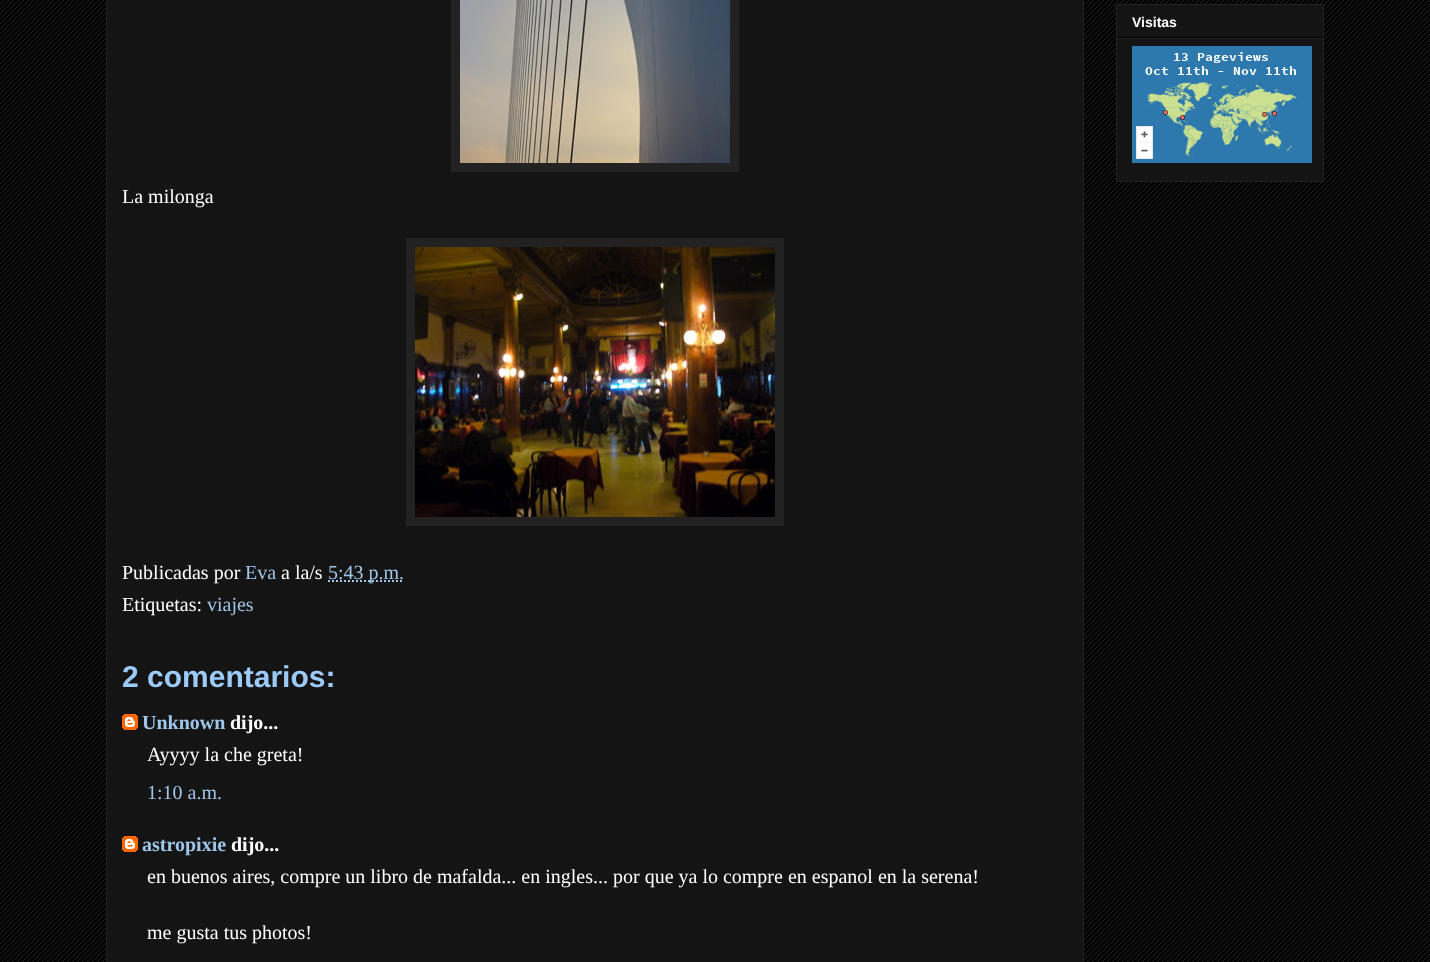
async function draw(canvas) {
  canvas.width = 1430;
  canvas.height = 962;
  const ctx = canvas.getContext('2d');
  ctx.miterLimit = 4;
  ctx.fontKerning = 'normal';
  function label(s, x, y, font, color) {
    ctx.font = font;
    ctx.fillStyle = color;
    ctx.fillText(s, x, y);
  }
  function rect(x, y, w, h, color) {
    ctx.fillStyle = color;
    ctx.fillRect(x, y, w, h);
  }
  async function image(src, x, y, w, h) {
    const img = new Image();
    img.src = src;
    await img.decode();
    ctx.drawImage(img, x, y, w, h);
  }
  let path;

  rect(0, 0, 1430, 962, '#000');
  await image('assets/img1.png', 0, 0, 1430, 962);
  ctx.fillStyle = '#141414';
  ctx.beginPath();
  ctx.rect(1116.5, 4.5, 207, 177);
  ctx.fill();
  ctx.strokeStyle = '#222';
  ctx.stroke();
  rect(1117, 37, 206, 1, '#000');
  label('Visitas', 1132, 27, 'bold 14px Liberation Sans', '#fff');
  rect(1117, 38, 206, 1, '#222');
  await image('assets/img2.png', 1132, 46, 180, 117);
  ctx.fillStyle = '#141414';
  ctx.beginPath();
  ctx.rect(106.5, -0.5, 977, 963);
  ctx.fill();
  ctx.stroke();
  rect(451, 0, 288, 172, '#222');
  await image('assets/img3.png', 460, 0, 270, 163);
  label('La milonga', 122, 203, '20px Liberation Serif', '#fff');
  rect(406, 238, 378, 288, '#222');
  await image('assets/img4.png', 415, 247, 360, 270);
  label('Publicadas por', 122, 579, '20px Liberation Serif', '#fff');
  label('Eva', 245, 579, '20px Liberation Serif', '#9fc5e8');
  label('a la/s', 281, 579, '20px Liberation Serif', '#fff');
  path = new Path2D('M328 581H404');
  ctx.strokeStyle = '#9fc5e8';
  ctx.lineWidth = 2;
  ctx.setLineDash([2, 2]);
  ctx.stroke(path);
  label('5:43 p.m.', 328, 579, '20px Liberation Serif', '#9fc5e8');
  label('Etiquetas:', 122, 611, '20px Liberation Serif', '#fff');
  label('viajes', 207, 611, '20px Liberation Serif', '#9fc5e8');
  label('2 comentarios:', 122, 687, 'bold 30px Liberation Sans', '#9ccaf9');
  await image('assets/img5.png', 122, 714, 16, 16);
  label('Unknown', 142, 729, 'bold 20px Liberation Serif', '#9fc5e8');
  label('dijo...', 230, 729, 'bold 20px Liberation Serif', '#fff');
  label('Ayyyy la che greta!', 147, 761, '20px Liberation Serif', '#fff');
  label('1:10 a.m.', 147, 799, '20px Liberation Serif', '#9fc5e8');
  await image('assets/img5.png', 122, 836, 16, 16);
  label('astropixie', 142, 851, 'bold 20px Liberation Serif', '#9fc5e8');
  label('dijo...', 231, 851, 'bold 20px Liberation Serif', '#fff');
  label('en buenos aires, compre un libro de mafalda... en ingles... por que ya lo compre en espanol en la serena!', 147, 883, '20px Liberation Serif', '#fff');
  label('me gusta tus photos!', 147, 939, '20px Liberation Serif', '#fff');
}

draw(document.querySelector('canvas'));
